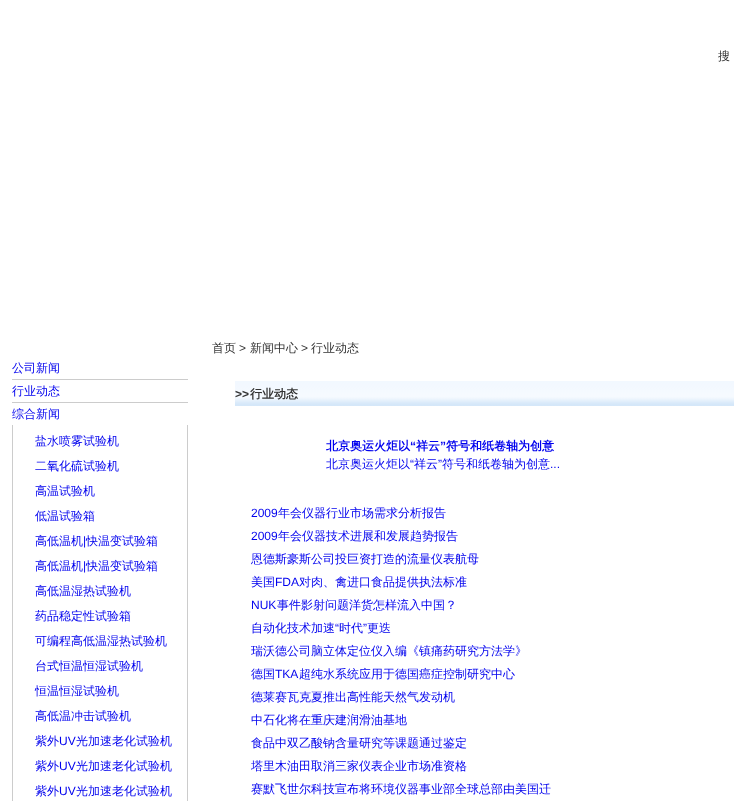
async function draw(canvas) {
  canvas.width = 734;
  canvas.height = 801;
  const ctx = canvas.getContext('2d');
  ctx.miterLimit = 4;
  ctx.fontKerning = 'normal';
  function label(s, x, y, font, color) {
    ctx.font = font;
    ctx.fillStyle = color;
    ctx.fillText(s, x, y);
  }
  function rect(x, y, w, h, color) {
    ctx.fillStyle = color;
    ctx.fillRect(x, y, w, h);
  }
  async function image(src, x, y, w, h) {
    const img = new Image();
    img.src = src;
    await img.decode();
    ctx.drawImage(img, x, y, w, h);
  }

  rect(0, 0, 734, 801, '#fff');
  label('搜', 718, 60, '500 12px WenQuanYi Zen Hei', '#333');
  label('公司新闻', 12, 372, '500 12px WenQuanYi Zen Hei', '#00e');
  rect(12, 379, 176, 1, '#ccc');
  label('行业动态', 12, 395, '500 12px WenQuanYi Zen Hei', '#00e');
  rect(12, 402, 176, 1, '#ccc');
  label('综合新闻', 12, 418, '500 12px WenQuanYi Zen Hei', '#00e');
  rect(12, 425, 176, 376, '#ccc');
  rect(13, 425, 174, 376, '#fff');
  label('盐水喷雾试验机', 35, 445, '500 12px WenQuanYi Zen Hei', '#00e');
  label('二氧化硫试验机', 35, 470, '500 12px WenQuanYi Zen Hei', '#00e');
  label('高温试验机', 35, 495, '500 12px WenQuanYi Zen Hei', '#00e');
  label('低温试验箱', 35, 520, '500 12px WenQuanYi Zen Hei', '#00e');
  label('高低温机', 35, 545, '500 12px WenQuanYi Zen Hei', '#00e');
  label('|', 83, 545, '12px Liberation Sans', '#00e');
  label('快温变试验箱', 86, 545, '500 12px WenQuanYi Zen Hei', '#00e');
  label('高低温机', 35, 570, '500 12px WenQuanYi Zen Hei', '#00e');
  label('|', 83, 570, '12px Liberation Sans', '#00e');
  label('快温变试验箱', 86, 570, '500 12px WenQuanYi Zen Hei', '#00e');
  label('高低温湿热试验机', 35, 595, '500 12px WenQuanYi Zen Hei', '#00e');
  label('药品稳定性试验箱', 35, 620, '500 12px WenQuanYi Zen Hei', '#00e');
  label('可编程高低温湿热试验机', 35, 645, '500 12px WenQuanYi Zen Hei', '#00e');
  label('台式恒温恒湿试验机', 35, 670, '500 12px WenQuanYi Zen Hei', '#00e');
  label('恒温恒湿试验机', 35, 695, '500 12px WenQuanYi Zen Hei', '#00e');
  label('高低温冲击试验机', 35, 720, '500 12px WenQuanYi Zen Hei', '#00e');
  label('紫外', 35, 745, '500 12px WenQuanYi Zen Hei', '#00e');
  label('UV', 59, 745, '12px Liberation Sans', '#00e');
  label('光加速老化试验机', 76, 745, '500 12px WenQuanYi Zen Hei', '#00e');
  label('紫外', 35, 770, '500 12px WenQuanYi Zen Hei', '#00e');
  label('UV', 59, 770, '12px Liberation Sans', '#00e');
  label('光加速老化试验机', 76, 770, '500 12px WenQuanYi Zen Hei', '#00e');
  label('紫外', 35, 795, '500 12px WenQuanYi Zen Hei', '#00e');
  label('UV', 59, 795, '12px Liberation Sans', '#00e');
  label('光加速老化试验机', 76, 795, '500 12px WenQuanYi Zen Hei', '#00e');
  label('首页', 212, 352, '500 12px WenQuanYi Zen Hei', '#333');
  label('>', 239, 352, '12px Liberation Sans', '#333');
  label('新闻中心', 250, 352, '500 12px WenQuanYi Zen Hei', '#333');
  label('>', 301, 352, '12px Liberation Sans', '#333');
  label('行业动态', 311, 352, '500 12px WenQuanYi Zen Hei', '#333');
  await image('assets/img1.png', 235, 381, 499, 25);
  label('>>', 235, 398, 'bold 12px Liberation Sans', '#333');
  label('行业动态', 250, 398, 'bold 12px WenQuanYi Zen Hei', '#333');
  label('北京奥运火炬以', 326, 450, 'bold 12px WenQuanYi Zen Hei', '#00e');
  label('“', 410, 450, 'bold 12px Liberation Sans', '#00e');
  label('祥云', 416, 450, 'bold 12px WenQuanYi Zen Hei', '#00e');
  label('”', 440, 450, 'bold 12px Liberation Sans', '#00e');
  label('符号和纸卷轴为创意', 446, 450, 'bold 12px WenQuanYi Zen Hei', '#00e');
  label('北京奥运火炬以', 326, 468, '500 12px WenQuanYi Zen Hei', '#00e');
  label('“', 410, 468, '12px Liberation Sans', '#00e');
  label('祥云', 414, 468, '500 12px WenQuanYi Zen Hei', '#00e');
  label('”', 438, 468, '12px Liberation Sans', '#00e');
  label('符号和纸卷轴为创意', 442, 468, '500 12px WenQuanYi Zen Hei', '#00e');
  label('...', 550, 468, '12px Liberation Sans', '#00e');
  label('2009', 251, 517, '12px Liberation Sans', '#00e');
  label('年会仪器行业市场需求分析报告', 278, 517, '500 12px WenQuanYi Zen Hei', '#00e');
  label('2009', 251, 540, '12px Liberation Sans', '#00e');
  label('年会仪器技术进展和发展趋势报告', 278, 540, '500 12px WenQuanYi Zen Hei', '#00e');
  label('恩德斯豪斯公司投巨资打造的流量仪表航母', 251, 563, '500 12px WenQuanYi Zen Hei', '#00e');
  label('美国', 251, 586, '500 12px WenQuanYi Zen Hei', '#00e');
  label('FDA', 275, 586, '12px Liberation Sans', '#00e');
  label('对肉、禽进口食品提供执法标准', 299, 586, '500 12px WenQuanYi Zen Hei', '#00e');
  label('NUK', 251, 609, '12px Liberation Sans', '#00e');
  label('事件影射问题洋货怎样流入中国？', 277, 609, '500 12px WenQuanYi Zen Hei', '#00e');
  label('自动化技术加速', 251, 632, '500 12px WenQuanYi Zen Hei', '#00e');
  label('“', 335, 632, '12px Liberation Sans', '#00e');
  label('时代', 339, 632, '500 12px WenQuanYi Zen Hei', '#00e');
  label('”', 363, 632, '12px Liberation Sans', '#00e');
  label('更迭', 367, 632, '500 12px WenQuanYi Zen Hei', '#00e');
  label('瑞沃德公司脑立体定位仪入编《镇痛药研究方法学》', 251, 655, '500 12px WenQuanYi Zen Hei', '#00e');
  label('德国', 251, 678, '500 12px WenQuanYi Zen Hei', '#00e');
  label('TKA', 275, 678, '12px Liberation Sans', '#00e');
  label('超纯水系统应用于德国癌症控制研究中心', 299, 678, '500 12px WenQuanYi Zen Hei', '#00e');
  label('德莱赛瓦克夏推出高性能天然气发动机', 251, 701, '500 12px WenQuanYi Zen Hei', '#00e');
  label('中石化将在重庆建润滑油基地', 251, 724, '500 12px WenQuanYi Zen Hei', '#00e');
  label('食品中双乙酸钠含量研究等课题通过鉴定', 251, 747, '500 12px WenQuanYi Zen Hei', '#00e');
  label('塔里木油田取消三家仪表企业市场准资格', 251, 770, '500 12px WenQuanYi Zen Hei', '#00e');
  label('赛默飞世尔科技宣布将环境仪器事业部全球总部由美国迁', 251, 793, '500 12px WenQuanYi Zen Hei', '#00e');
}

draw(document.querySelector('canvas'));
